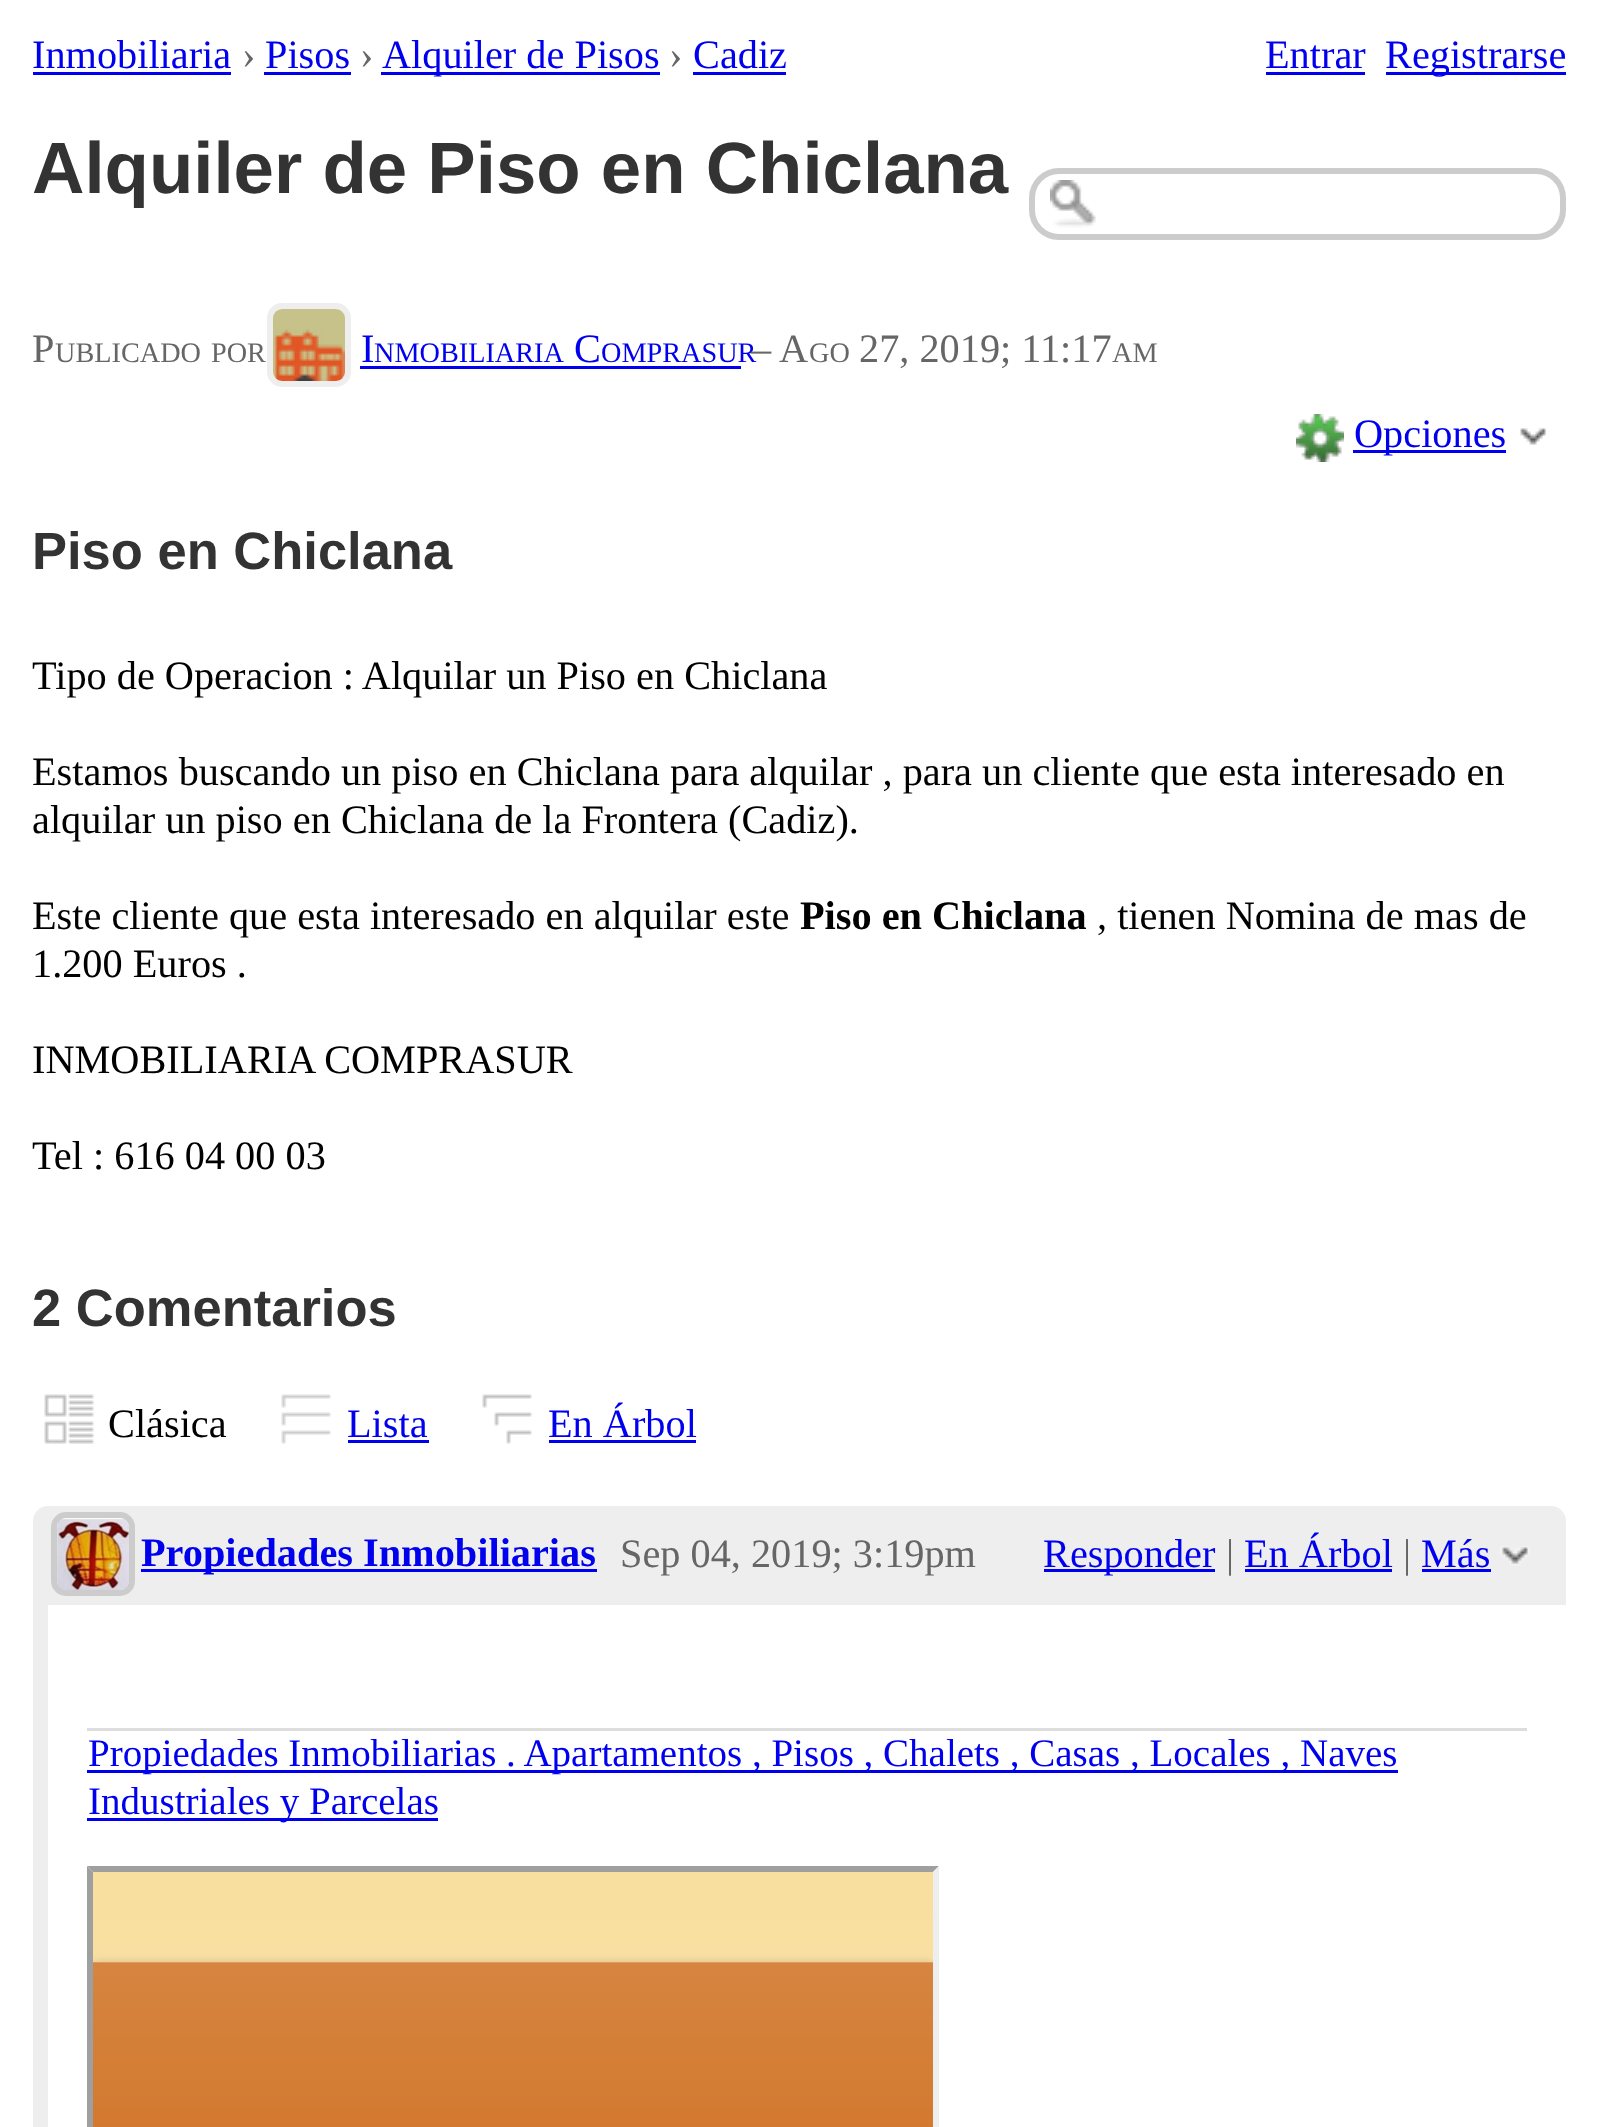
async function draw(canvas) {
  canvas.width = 1597;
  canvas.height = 2127;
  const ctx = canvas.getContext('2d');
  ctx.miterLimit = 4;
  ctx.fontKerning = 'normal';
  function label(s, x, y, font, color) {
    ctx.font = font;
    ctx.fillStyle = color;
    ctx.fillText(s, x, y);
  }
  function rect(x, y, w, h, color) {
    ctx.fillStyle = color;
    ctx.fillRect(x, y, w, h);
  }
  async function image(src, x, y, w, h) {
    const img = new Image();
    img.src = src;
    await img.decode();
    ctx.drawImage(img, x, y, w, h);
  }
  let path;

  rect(0, 0, 1597, 2127, '#fff');
  label('Inmobiliaria', 32, 68, '40.3px Liberation Serif', '#00e');
  rect(33, 72, 198, 3, '#00e');
  label('›', 242, 68, '40.3px Liberation Serif', '#666');
  label('Pisos', 265, 68, '40.3px Liberation Serif', '#00e');
  rect(264, 72, 87, 3, '#00e');
  label('›', 360, 68, '40.3px Liberation Serif', '#666');
  rect(381, 72, 279, 3, '#00e');
  label('Alquiler de Pisos', 382, 68, '40.3px Liberation Serif', '#00e');
  label('›', 669, 68, '40.3px Liberation Serif', '#666');
  label('Cadiz', 693, 68, '40.3px Liberation Serif', '#00e');
  rect(693, 72, 93, 3, '#00e');
  label('Entrar', 1265, 68, '40.3px Liberation Serif', '#00e');
  rect(1266, 72, 99, 3, '#00e');
  rect(1386, 72, 180, 3, '#00e');
  label('Registrarse', 1385, 68, '40.3px Liberation Serif', '#00e');
  label('Alquiler de Piso en Chiclana', 32, 193, 'bold 72.6px Liberation Sans', '#333');
  await image('assets/img1.png', 1050, 180, 46, 48);
  ctx.beginPath();
  ctx.roundRect(1032, 171, 531, 66, 27);
  ctx.strokeStyle = '#ccc';
  ctx.lineWidth = 6;
  ctx.stroke();
  ctx.beginPath();
  ctx.roundRect(270, 306, 78, 78, 12);
  ctx.strokeStyle = '#eee';
  ctx.stroke();
  label('P', 32, 362, '40.3px Liberation Serif', '#666');
  label('UBLICADO', 55, 362, '28.25px Liberation Serif', '#666');
  label('POR', 211, 362, '28.25px Liberation Serif', '#666');
  await image('assets/img2.png', 273, 309, 72, 72);
  label('I', 361, 362, '40.3px Liberation Serif', '#00e');
  label('NMOBILIARIA', 374, 362, '28.25px Liberation Serif', '#00e');
  rect(360, 366, 381, 3, '#00e');
  label('C', 574, 362, '40.3px Liberation Serif', '#00e');
  label('OMPRASUR', 601, 362, '28.25px Liberation Serif', '#00e');
  label('–', 751, 362, '40.3px Liberation Serif', '#666');
  label('A', 779, 362, '40.3px Liberation Serif', '#666');
  label('GO', 809, 362, '28.25px Liberation Serif', '#666');
  label('27, 2019; 11:17', 859, 362, '40.3px Liberation Serif', '#666');
  label('AM', 1112, 362, '28.25px Liberation Serif', '#666');
  await image('assets/img3.png', 1296, 414, 48, 48);
  rect(1353, 450, 153, 3, '#00e');
  label('Opciones', 1354, 447, '40.3px Liberation Serif', '#00e');
  await image('assets/img4.png', 1520, 428, 26, 17);
  label('Piso en Chiclana', 32, 569, 'bold 52.5px Liberation Sans', '#333');
  label('Tipo de Operacion : Alquilar un Piso en Chiclana', 32, 689, '40.3px Liberation Serif', '#000');
  label('Estamos buscando un piso en Chiclana para alquilar , para un cliente que esta interesado en', 32, 785, '40.3px Liberation Serif', '#000');
  label('alquilar un piso en Chiclana de la Frontera (Cadiz).', 32, 833, '40.3px Liberation Serif', '#000');
  label('Este cliente que esta interesado en alquilar este', 32, 929, '40.3px Liberation Serif', '#000');
  label('Piso en Chiclana', 800, 929, 'bold 40.3px Liberation Serif', '#000');
  label(', tienen Nomina de mas de', 1097, 929, '40.3px Liberation Serif', '#000');
  label('1.200 Euros .', 32, 977, '40.3px Liberation Serif', '#000');
  label('INMOBILIARIA COMPRASUR', 32, 1073, '40.3px Liberation Serif', '#000');
  label('Tel : 616 04 00 03', 32, 1169, '40.3px Liberation Serif', '#000');
  label('2 Comentarios', 32, 1326, 'bold 52.5px Liberation Sans', '#333');
  await image('assets/img5.png', 44, 1394, 50, 50);
  label('Clásica', 108, 1437, '40.3px Liberation Serif', '#000');
  await image('assets/img6.png', 281, 1394, 50, 50);
  label('Lista', 347, 1437, '40.3px Liberation Serif', '#00e');
  rect(348, 1440, 81, 3, '#00e');
  await image('assets/img7.png', 482, 1394, 50, 50);
  label('En Árbol', 548, 1437, '40.3px Liberation Serif', '#00e');
  rect(549, 1440, 147, 3, '#00e');
  ctx.fillStyle = '#eee';
  ctx.beginPath();
  ctx.roundRect(33, 1506, 1533, 99, [15, 15, 0, 0]);
  ctx.fill();
  ctx.beginPath();
  ctx.roundRect(54, 1515, 78, 78, 12);
  ctx.strokeStyle = '#ccc';
  ctx.stroke();
  await image('assets/img8.png', 57, 1518, 72, 72);
  rect(141, 1569, 456, 3, '#00e');
  label('Propiedades Inmobiliarias', 141, 1566, 'bold 40.3px Liberation Serif', '#00e');
  label('Sep 04, 2019; 3:19pm', 620, 1567, '40.3px Liberation Serif', '#666');
  rect(1044, 1569, 171, 3, '#00e');
  label('Responder', 1043, 1567, '40.3px Liberation Serif', '#00e');
  label('|', 1226, 1567, '40.3px Liberation Serif', '#666');
  label('En Árbol', 1244, 1567, '40.3px Liberation Serif', '#00e');
  rect(1245, 1569, 147, 3, '#00e');
  label('|', 1403, 1567, '40.3px Liberation Serif', '#666');
  label('Más', 1421, 1567, '40.3px Liberation Serif', '#00e');
  rect(1422, 1569, 69, 3, '#00e');
  await image('assets/img9.png', 1500, 1546, 30, 20);
  rect(33, 1605, 15, 522, '#eee');
  rect(87, 1728, 1440, 3, '#ddd');
  rect(87, 1770, 1311, 3, '#00e');
  label('Propiedades Inmobiliarias . Apartamentos , Pisos , Chalets , Casas , Locales , Naves', 88, 1766, '39px Liberation Serif', '#00e');
  rect(87, 1818, 351, 3, '#00e');
  label('Industriales y Parcelas', 88, 1814, '39px Liberation Serif', '#00e');
  ctx.fillStyle = '#9f9f9f';
  path = new Path2D('M87 1866H939L933 1872H93Z');
  ctx.fill(path);
  path = new Path2D('M87 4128V1866L93 1872V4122Z');
  ctx.fill(path);
  await image('assets/img10.png', 93, 1872, 840, 255);
  ctx.fillStyle = '#eee';
  path = new Path2D('M939 1866V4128L933 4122V1872Z');
  ctx.fill(path);
}

draw(document.querySelector('canvas'));
